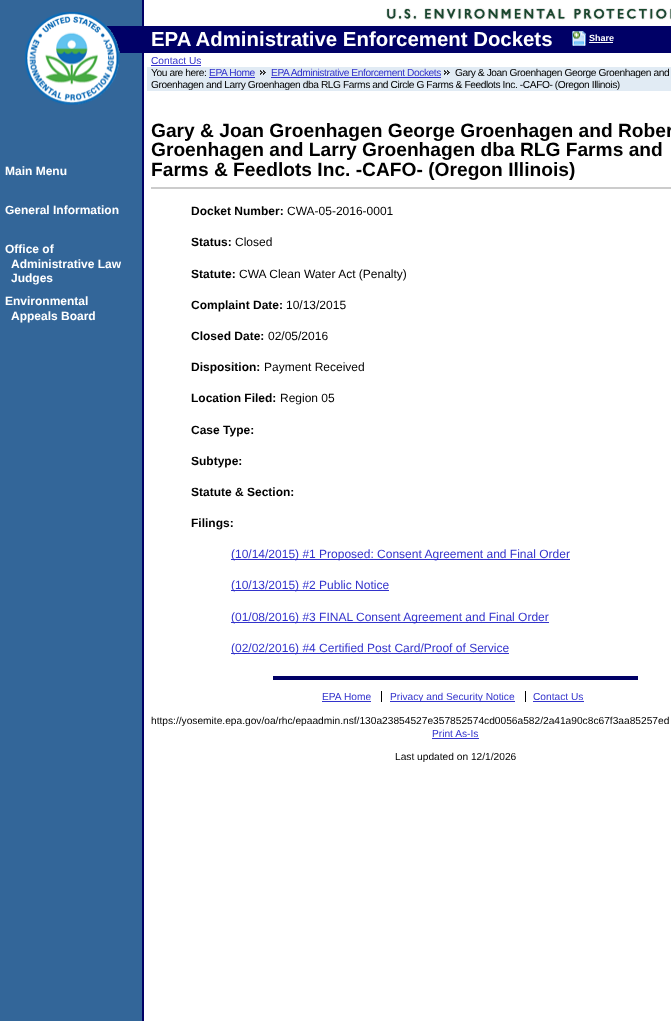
async function draw(canvas) {
  canvas.width = 671;
  canvas.height = 1021;
  const ctx = canvas.getContext('2d');
  ctx.miterLimit = 4;
  ctx.fontKerning = 'normal';
  function label(s, x, y, font, color) {
    ctx.font = font;
    ctx.fillStyle = color;
    ctx.fillText(s, x, y);
  }
  function rect(x, y, w, h, color) {
    ctx.fillStyle = color;
    ctx.fillRect(x, y, w, h);
  }
  async function image(src, x, y, w, h) {
    const img = new Image();
    img.src = src;
    await img.decode();
    ctx.drawImage(img, x, y, w, h);
  }

  rect(0, 0, 671, 1021, '#fff');
  await image('assets/img1.png', 0, 0, 144, 1021);
  await image('assets/img2.png', 386, 8, 285, 15);
  rect(107, 26, 564, 27, '#006');
  await image('assets/img3.png', 25, 12, 95, 93);
  label('EPA Administrative Enforcement Dockets', 151, 46, 'bold 20.4px Liberation Sans', '#fff');
  label('Contact Us', 151, 64, '10.2px Liberation Sans', '#33c');
  rect(151, 65, 50, 1, '#33c');
  rect(147, 67, 524, 24, '#e1ebf4');
  ctx.letterSpacing = '-0.41px';
  label('You are here:', 151, 76, '10.2px Liberation Sans', '#000');
  label('EPA Home', 209, 76, '10.2px Liberation Sans', '#33c');
  rect(209, 77, 46, 1, '#33c');
  await image('assets/img4.png', 260, 70, 6, 5);
  label('EPA Administrative Enforcement Dockets', 271, 76, '10.2px Liberation Sans', '#33c');
  rect(271, 77, 170, 1, '#33c');
  await image('assets/img4.png', 444, 70, 6, 5);
  label('Gary & Joan Groenhagen George Groenhagen and', 455, 76, '10.2px Liberation Sans', '#000');
  label('Groenhagen and Larry Groenhagen dba RLG Farms and Circle G Farms & Feedlots Inc. -CAFO- (Oregon Illinois)', 151, 88, '10.2px Liberation Sans', '#000');
  await image('assets/img5.png', 572, 31, 14, 15);
  ctx.letterSpacing = '0px';
  label('Share', 589, 41, 'bold 9px Liberation Sans', '#fff');
  rect(589, 42, 24, 1, '#fff');
  rect(273, 676, 365, 4, '#006');
  label('EPA Home', 322, 700, '10.2px Liberation Sans', '#33c');
  rect(381, 691, 1, 11, '#000');
  rect(322, 701, 49, 1, '#33c');
  rect(390, 701, 125, 1, '#33c');
  label('Privacy and Security Notice', 390, 700, '10.2px Liberation Sans', '#33c');
  rect(525, 691, 1, 11, '#000');
  label('Contact Us', 533, 700, '10.2px Liberation Sans', '#33c');
  rect(533, 701, 51, 1, '#33c');
  label('https://yosemite.epa.gov/oa/rhc/epaadmin.nsf/130a23854527e357852574cd0056a582/2a41a90c8c67f3aa85257ed', 151, 724, '10.2px Liberation Sans', '#000');
  label('Print As-Is', 432, 737, '10.2px Liberation Sans', '#33c');
  rect(432, 738, 47, 1, '#33c');
  label('Last updated on 12/1/2026', 395, 760, '10.2px Liberation Sans', '#000');
  label('Main Menu', 5, 175, 'bold 12px Liberation Sans', '#fff');
  label('General Information', 5, 214, 'bold 12px Liberation Sans', '#fff');
  label('Office of', 5, 253, 'bold 12px Liberation Sans', '#fff');
  label('Administrative Law', 11, 268, 'bold 12px Liberation Sans', '#fff');
  label('Judges', 11, 282, 'bold 12px Liberation Sans', '#fff');
  label('Environmental', 5, 305, 'bold 12px Liberation Sans', '#fff');
  label('Appeals Board', 11, 320, 'bold 12px Liberation Sans', '#fff');
  label('Gary & Joan Groenhagen George Groenhagen and Rober', 151, 137, 'bold 19.2px Liberation Sans', '#000');
  label('Groenhagen and Larry Groenhagen dba RLG Farms and', 151, 156, 'bold 19.2px Liberation Sans', '#000');
  label('Farms & Feedlots Inc. -CAFO- (Oregon Illinois)', 151, 176, 'bold 19.2px Liberation Sans', '#000');
  rect(151, 187, 520, 2, '#ccc');
  label('Docket Number:', 191, 215, 'bold 12px Liberation Sans', '#000');
  label('CWA-05-2016-0001', 287, 215, '12px Liberation Sans', '#000');
  label('Status:', 191, 246, 'bold 12px Liberation Sans', '#000');
  label('Closed', 235, 246, '12px Liberation Sans', '#000');
  label('Statute:', 191, 278, 'bold 12px Liberation Sans', '#000');
  label('CWA Clean Water Act (Penalty)', 239, 278, '12px Liberation Sans', '#000');
  label('Complaint Date:', 191, 309, 'bold 12px Liberation Sans', '#000');
  label('10/13/2015', 286, 309, '12px Liberation Sans', '#000');
  label('Closed Date:', 191, 340, 'bold 12px Liberation Sans', '#000');
  label('02/05/2016', 268, 340, '12px Liberation Sans', '#000');
  label('Disposition:', 191, 371, 'bold 12px Liberation Sans', '#000');
  label('Payment Received', 264, 371, '12px Liberation Sans', '#000');
  label('Location Filed:', 191, 402, 'bold 12px Liberation Sans', '#000');
  label('Region 05', 280, 402, '12px Liberation Sans', '#000');
  label('Case Type:', 191, 434, 'bold 12px Liberation Sans', '#000');
  label('Subtype:', 191, 465, 'bold 12px Liberation Sans', '#000');
  label('Statute & Section:', 191, 496, 'bold 12px Liberation Sans', '#000');
  label('Filings:', 191, 527, 'bold 12px Liberation Sans', '#000');
  rect(231, 559, 339, 1, '#33c');
  label('(10/14/2015) #1 Proposed: Consent Agreement and Final Order', 231, 558, '12px Liberation Sans', '#33c');
  rect(231, 590, 158, 1, '#33c');
  label('(10/13/2015) #2 Public Notice', 231, 589, '12px Liberation Sans', '#33c');
  rect(231, 622, 318, 1, '#33c');
  label('(01/08/2016) #3 FINAL Consent Agreement and Final Order', 231, 621, '12px Liberation Sans', '#33c');
  rect(231, 653, 278, 1, '#33c');
  label('(02/02/2016) #4 Certified Post Card/Proof of Service', 231, 652, '12px Liberation Sans', '#33c');
}

draw(document.querySelector('canvas'));
